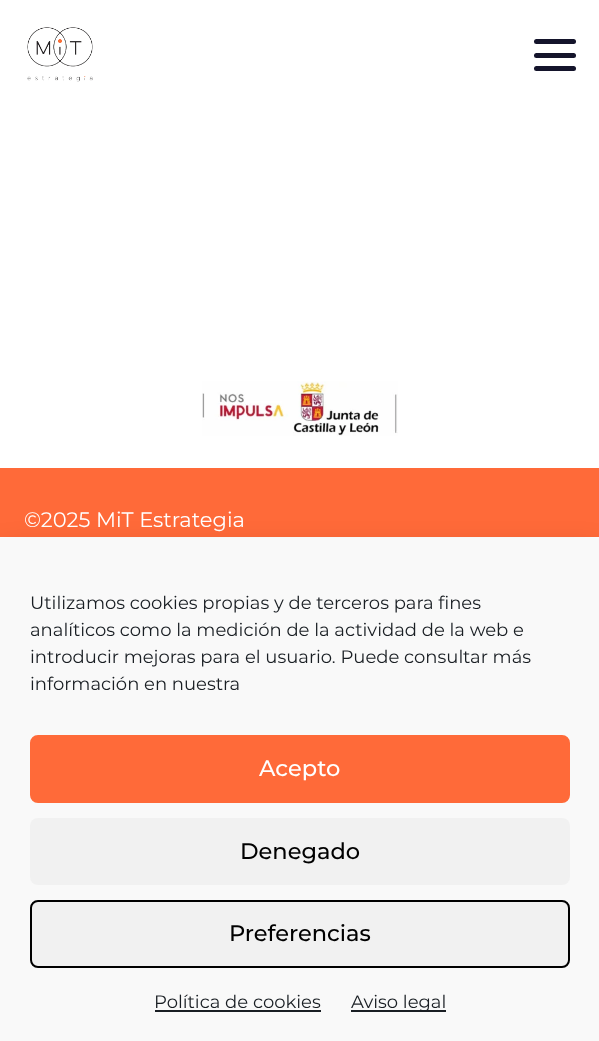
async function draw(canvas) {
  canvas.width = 599;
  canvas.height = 1041;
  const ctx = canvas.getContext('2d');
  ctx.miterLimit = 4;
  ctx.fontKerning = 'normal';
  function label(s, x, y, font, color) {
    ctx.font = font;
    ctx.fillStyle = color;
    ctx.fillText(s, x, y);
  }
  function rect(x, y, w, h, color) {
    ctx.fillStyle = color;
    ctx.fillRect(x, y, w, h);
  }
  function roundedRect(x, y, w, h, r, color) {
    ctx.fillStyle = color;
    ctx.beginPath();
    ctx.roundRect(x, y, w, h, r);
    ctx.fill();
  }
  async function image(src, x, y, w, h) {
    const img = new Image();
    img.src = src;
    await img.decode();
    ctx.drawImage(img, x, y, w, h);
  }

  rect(0, 0, 599, 1041, '#fff');
  await image('assets/img1.png', 27, 27, 66, 55);
  roundedRect(534, 39, 42, 5, 2.5, '#14142b');
  roundedRect(534, 53, 42, 5, 2.5, '#14142b');
  roundedRect(534, 66, 42, 5, 2.5, '#14142b');
  await image('assets/img2.png', 202, 381, 196, 55);
  rect(0, 468, 599, 69, '#ff6a39');
  label('©2025 MiT Estrategia', 24, 527, '21px Montserrat', '#fff');
  ctx.fillStyle = '#00000030';
  ctx.filter = 'blur(15px)';
  ctx.beginPath();
  ctx.rect(0, 552, 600, 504);
  ctx.fill();
  ctx.filter = 'none';
  rect(0, 538, 599, 503, '#f9f9f9');
  label('Utilizamos cookies propias y de terceros para fines', 30, 609, '18px Montserrat', '#191e23');
  label('analíticos como la medición de la actividad de la web e', 30, 636, '18px Montserrat', '#191e23');
  label('introducir mejoras para el usuario. Puede consultar más', 30, 663, '18px Montserrat', '#191e23');
  label('información en nuestra', 30, 690, '18px Montserrat', '#191e23');
  ctx.fillStyle = '#ff6a39';
  ctx.beginPath();
  ctx.roundRect(31, 736, 538, 66, 7);
  ctx.fill();
  ctx.strokeStyle = '#ff6a39';
  ctx.lineWidth = 2;
  ctx.stroke();
  label('Acepto', 259, 776, '500 22.5px Montserrat', '#fff');
  roundedRect(30, 818, 540, 67, 8, '#f1f1f1');
  label('Denegado', 240, 859, '500 22.5px Montserrat', '#000');
  ctx.fillStyle = '#f1f1f1';
  ctx.beginPath();
  ctx.roundRect(31, 901, 538, 66, 7);
  ctx.fill();
  ctx.strokeStyle = '#000';
  ctx.stroke();
  label('Preferencias', 229, 941, '500 22.5px Montserrat', '#000');
  label('Política de cookies', 154, 1008, '18px Montserrat', '#191e23');
  rect(155, 1010, 166, 2, '#191e23');
  rect(351, 1010, 95, 2, '#191e23');
  label('Aviso legal', 351, 1008, '18px Montserrat', '#191e23');
}

draw(document.querySelector('canvas'));
